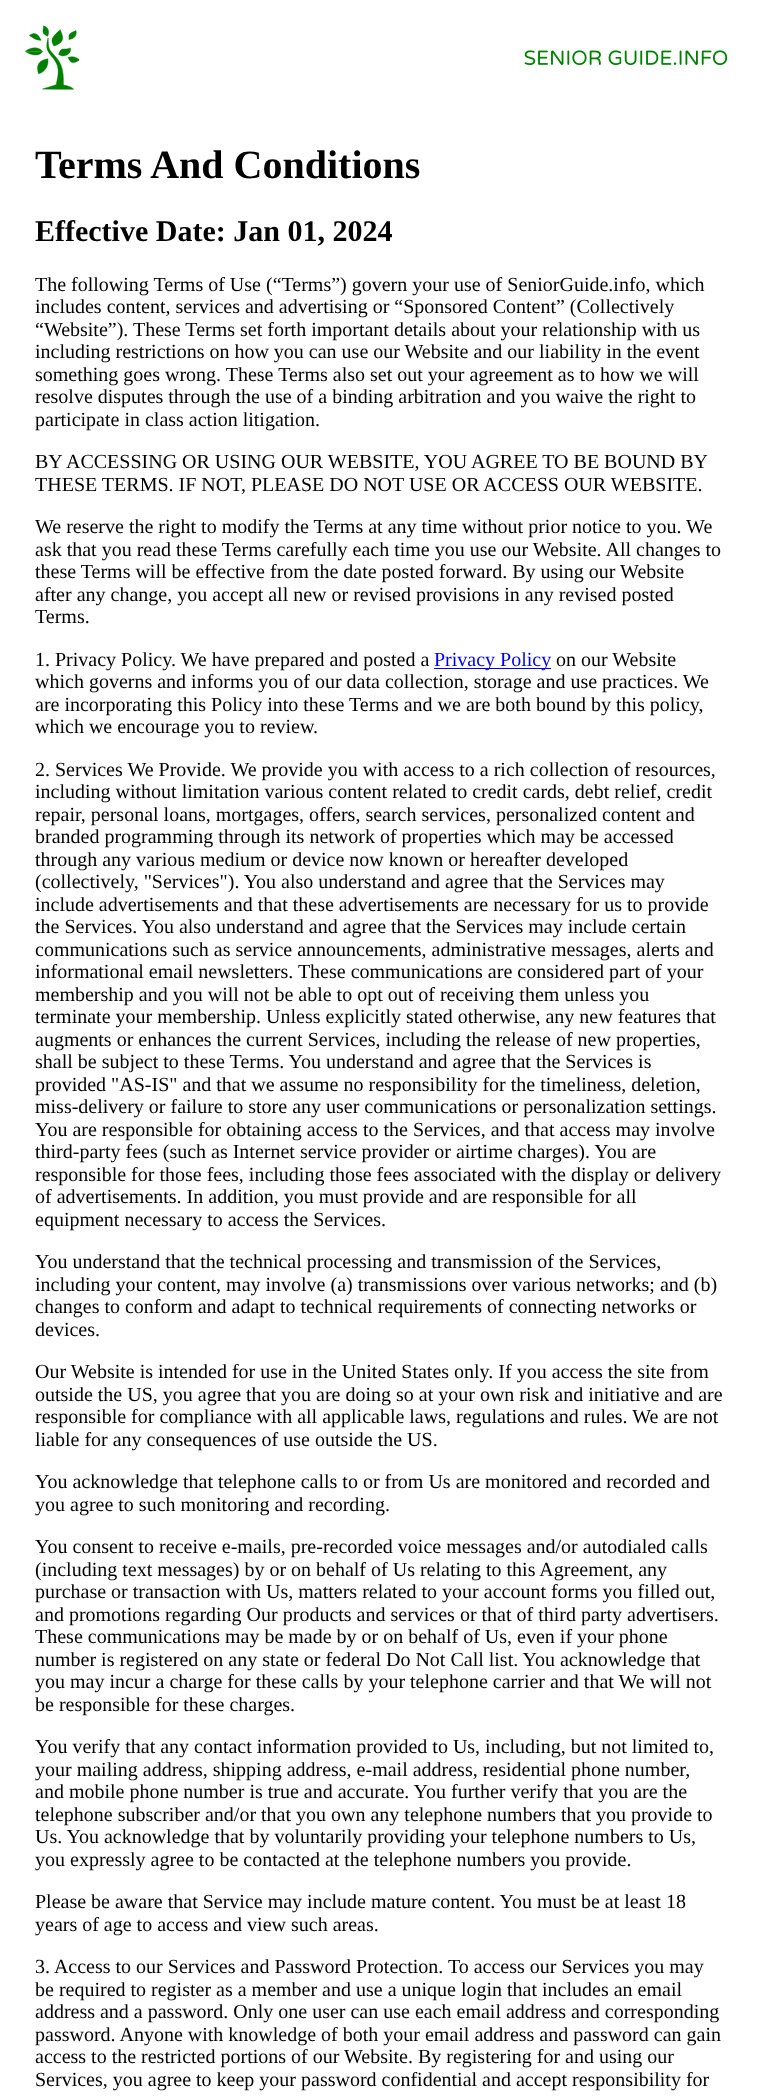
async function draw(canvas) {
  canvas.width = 757;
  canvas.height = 2099;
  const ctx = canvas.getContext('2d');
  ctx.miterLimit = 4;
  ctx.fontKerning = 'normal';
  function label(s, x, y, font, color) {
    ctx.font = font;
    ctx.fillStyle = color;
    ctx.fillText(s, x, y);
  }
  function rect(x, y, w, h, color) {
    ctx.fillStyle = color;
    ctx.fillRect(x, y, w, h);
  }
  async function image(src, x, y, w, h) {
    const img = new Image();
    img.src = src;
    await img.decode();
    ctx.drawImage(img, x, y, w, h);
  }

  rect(0, 0, 757, 2099, '#fff');
  await image('assets/img1.png', 25, 25, 55, 65);
  await image('assets/img2.png', 524, 50, 204, 15);
  label('Terms And Conditions', 35, 178, 'bold 40px Liberation Serif', '#000');
  label('Effective Date: Jan 01, 2024', 35, 241, 'bold 30px Liberation Serif', '#000');
  label('The following Terms of Use (“Terms”) govern your use of SeniorGuide.info, which', 35, 291, '20px Liberation Serif', '#000');
  label('includes content, services and advertising or “Sponsored Content” (Collectively', 35, 313, '20px Liberation Serif', '#000');
  label('“Website”). These Terms set forth important details about your relationship with us', 35, 336, '20px Liberation Serif', '#000');
  label('including restrictions on how you can use our Website and our liability in the event', 35, 358, '20px Liberation Serif', '#000');
  label('something goes wrong. These Terms also set out your agreement as to how we will', 35, 381, '20px Liberation Serif', '#000');
  label('resolve disputes through the use of a binding arbitration and you waive the right to', 35, 403, '20px Liberation Serif', '#000');
  label('participate in class action litigation.', 35, 426, '20px Liberation Serif', '#000');
  label('BY ACCESSING OR USING OUR WEBSITE, YOU AGREE TO BE BOUND BY', 35, 468, '20px Liberation Serif', '#000');
  label('THESE TERMS. IF NOT, PLEASE DO NOT USE OR ACCESS OUR WEBSITE.', 35, 491, '20px Liberation Serif', '#000');
  label('We reserve the right to modify the Terms at any time without prior notice to you. We', 35, 533, '20px Liberation Serif', '#000');
  label('ask that you read these Terms carefully each time you use our Website. All changes to', 35, 556, '20px Liberation Serif', '#000');
  label('these Terms will be effective from the date posted forward. By using our Website', 35, 578, '20px Liberation Serif', '#000');
  label('after any change, you accept all new or revised provisions in any revised posted', 35, 601, '20px Liberation Serif', '#000');
  label('Terms.', 35, 623, '20px Liberation Serif', '#000');
  label('1. Privacy Policy. We have prepared and posted a', 35, 666, '20px Liberation Serif', '#000');
  rect(434, 668, 117, 1, '#00e');
  label('Privacy Policy', 434, 666, '20px Liberation Serif', '#00e');
  label('on our Website', 556, 666, '20px Liberation Serif', '#000');
  label('which governs and informs you of our data collection, storage and use practices. We', 35, 688, '20px Liberation Serif', '#000');
  label('are incorporating this Policy into these Terms and we are both bound by this policy,', 35, 711, '20px Liberation Serif', '#000');
  label('which we encourage you to review.', 35, 733, '20px Liberation Serif', '#000');
  label('2. Services We Provide. We provide you with access to a rich collection of resources,', 35, 776, '20px Liberation Serif', '#000');
  label('including without limitation various content related to credit cards, debt relief, credit', 35, 798, '20px Liberation Serif', '#000');
  label('repair, personal loans, mortgages, offers, search services, personalized content and', 35, 821, '20px Liberation Serif', '#000');
  label('branded programming through its network of properties which may be accessed', 35, 843, '20px Liberation Serif', '#000');
  label('through any various medium or device now known or hereafter developed', 35, 866, '20px Liberation Serif', '#000');
  label('(collectively, "Services"). You also understand and agree that the Services may', 35, 888, '20px Liberation Serif', '#000');
  label('include advertisements and that these advertisements are necessary for us to provide', 35, 911, '20px Liberation Serif', '#000');
  label('the Services. You also understand and agree that the Services may include certain', 35, 933, '20px Liberation Serif', '#000');
  label('communications such as service announcements, administrative messages, alerts and', 35, 956, '20px Liberation Serif', '#000');
  label('informational email newsletters. These communications are considered part of your', 35, 978, '20px Liberation Serif', '#000');
  label('membership and you will not be able to opt out of receiving them unless you', 35, 1001, '20px Liberation Serif', '#000');
  label('terminate your membership. Unless explicitly stated otherwise, any new features that', 35, 1023, '20px Liberation Serif', '#000');
  label('augments or enhances the current Services, including the release of new properties,', 35, 1046, '20px Liberation Serif', '#000');
  label('shall be subject to these Terms. You understand and agree that the Services is', 35, 1068, '20px Liberation Serif', '#000');
  label('provided "AS-IS" and that we assume no responsibility for the timeliness, deletion,', 35, 1091, '20px Liberation Serif', '#000');
  label('miss-delivery or failure to store any user communications or personalization settings.', 35, 1113, '20px Liberation Serif', '#000');
  label('You are responsible for obtaining access to the Services, and that access may involve', 35, 1136, '20px Liberation Serif', '#000');
  label('third-party fees (such as Internet service provider or airtime charges). You are', 35, 1158, '20px Liberation Serif', '#000');
  label('responsible for those fees, including those fees associated with the display or delivery', 35, 1181, '20px Liberation Serif', '#000');
  label('of advertisements. In addition, you must provide and are responsible for all', 35, 1203, '20px Liberation Serif', '#000');
  label('equipment necessary to access the Services.', 35, 1226, '20px Liberation Serif', '#000');
  label('You understand that the technical processing and transmission of the Services,', 35, 1268, '20px Liberation Serif', '#000');
  label('including your content, may involve (a) transmissions over various networks; and (b)', 35, 1291, '20px Liberation Serif', '#000');
  label('changes to conform and adapt to technical requirements of connecting networks or', 35, 1313, '20px Liberation Serif', '#000');
  label('devices.', 35, 1336, '20px Liberation Serif', '#000');
  label('Our Website is intended for use in the United States only. If you access the site from', 35, 1378, '20px Liberation Serif', '#000');
  label('outside the US, you agree that you are doing so at your own risk and initiative and are', 35, 1401, '20px Liberation Serif', '#000');
  label('responsible for compliance with all applicable laws, regulations and rules. We are not', 35, 1423, '20px Liberation Serif', '#000');
  label('liable for any consequences of use outside the US.', 35, 1446, '20px Liberation Serif', '#000');
  label('You acknowledge that telephone calls to or from Us are monitored and recorded and', 35, 1488, '20px Liberation Serif', '#000');
  label('you agree to such monitoring and recording.', 35, 1511, '20px Liberation Serif', '#000');
  label('You consent to receive e-mails, pre-recorded voice messages and/or autodialed calls', 35, 1553, '20px Liberation Serif', '#000');
  label('(including text messages) by or on behalf of Us relating to this Agreement, any', 35, 1576, '20px Liberation Serif', '#000');
  label('purchase or transaction with Us, matters related to your account forms you filled out,', 35, 1598, '20px Liberation Serif', '#000');
  label('and promotions regarding Our products and services or that of third party advertisers.', 35, 1621, '20px Liberation Serif', '#000');
  label('These communications may be made by or on behalf of Us, even if your phone', 35, 1643, '20px Liberation Serif', '#000');
  label('number is registered on any state or federal Do Not Call list. You acknowledge that', 35, 1666, '20px Liberation Serif', '#000');
  label('you may incur a charge for these calls by your telephone carrier and that We will not', 35, 1688, '20px Liberation Serif', '#000');
  label('be responsible for these charges.', 35, 1711, '20px Liberation Serif', '#000');
  label('You verify that any contact information provided to Us, including, but not limited to,', 35, 1753, '20px Liberation Serif', '#000');
  label('your mailing address, shipping address, e-mail address, residential phone number,', 35, 1776, '20px Liberation Serif', '#000');
  label('and mobile phone number is true and accurate. You further verify that you are the', 35, 1798, '20px Liberation Serif', '#000');
  label('telephone subscriber and/or that you own any telephone numbers that you provide to', 35, 1821, '20px Liberation Serif', '#000');
  label('Us. You acknowledge that by voluntarily providing your telephone numbers to Us,', 35, 1843, '20px Liberation Serif', '#000');
  label('you expressly agree to be contacted at the telephone numbers you provide.', 35, 1866, '20px Liberation Serif', '#000');
  label('Please be aware that Service may include mature content. You must be at least 18', 35, 1908, '20px Liberation Serif', '#000');
  label('years of age to access and view such areas.', 35, 1931, '20px Liberation Serif', '#000');
  label('3. Access to our Services and Password Protection. To access our Services you may', 35, 1973, '20px Liberation Serif', '#000');
  label('be required to register as a member and use a unique login that includes an email', 35, 1996, '20px Liberation Serif', '#000');
  label('address and a password. Only one user can use each email address and corresponding', 35, 2018, '20px Liberation Serif', '#000');
  label('password. Anyone with knowledge of both your email address and password can gain', 35, 2041, '20px Liberation Serif', '#000');
  label('access to the restricted portions of our Website. By registering for and using our', 35, 2063, '20px Liberation Serif', '#000');
  label('Services, you agree to keep your password confidential and accept responsibility for', 35, 2086, '20px Liberation Serif', '#000');
}

draw(document.querySelector('canvas'));
